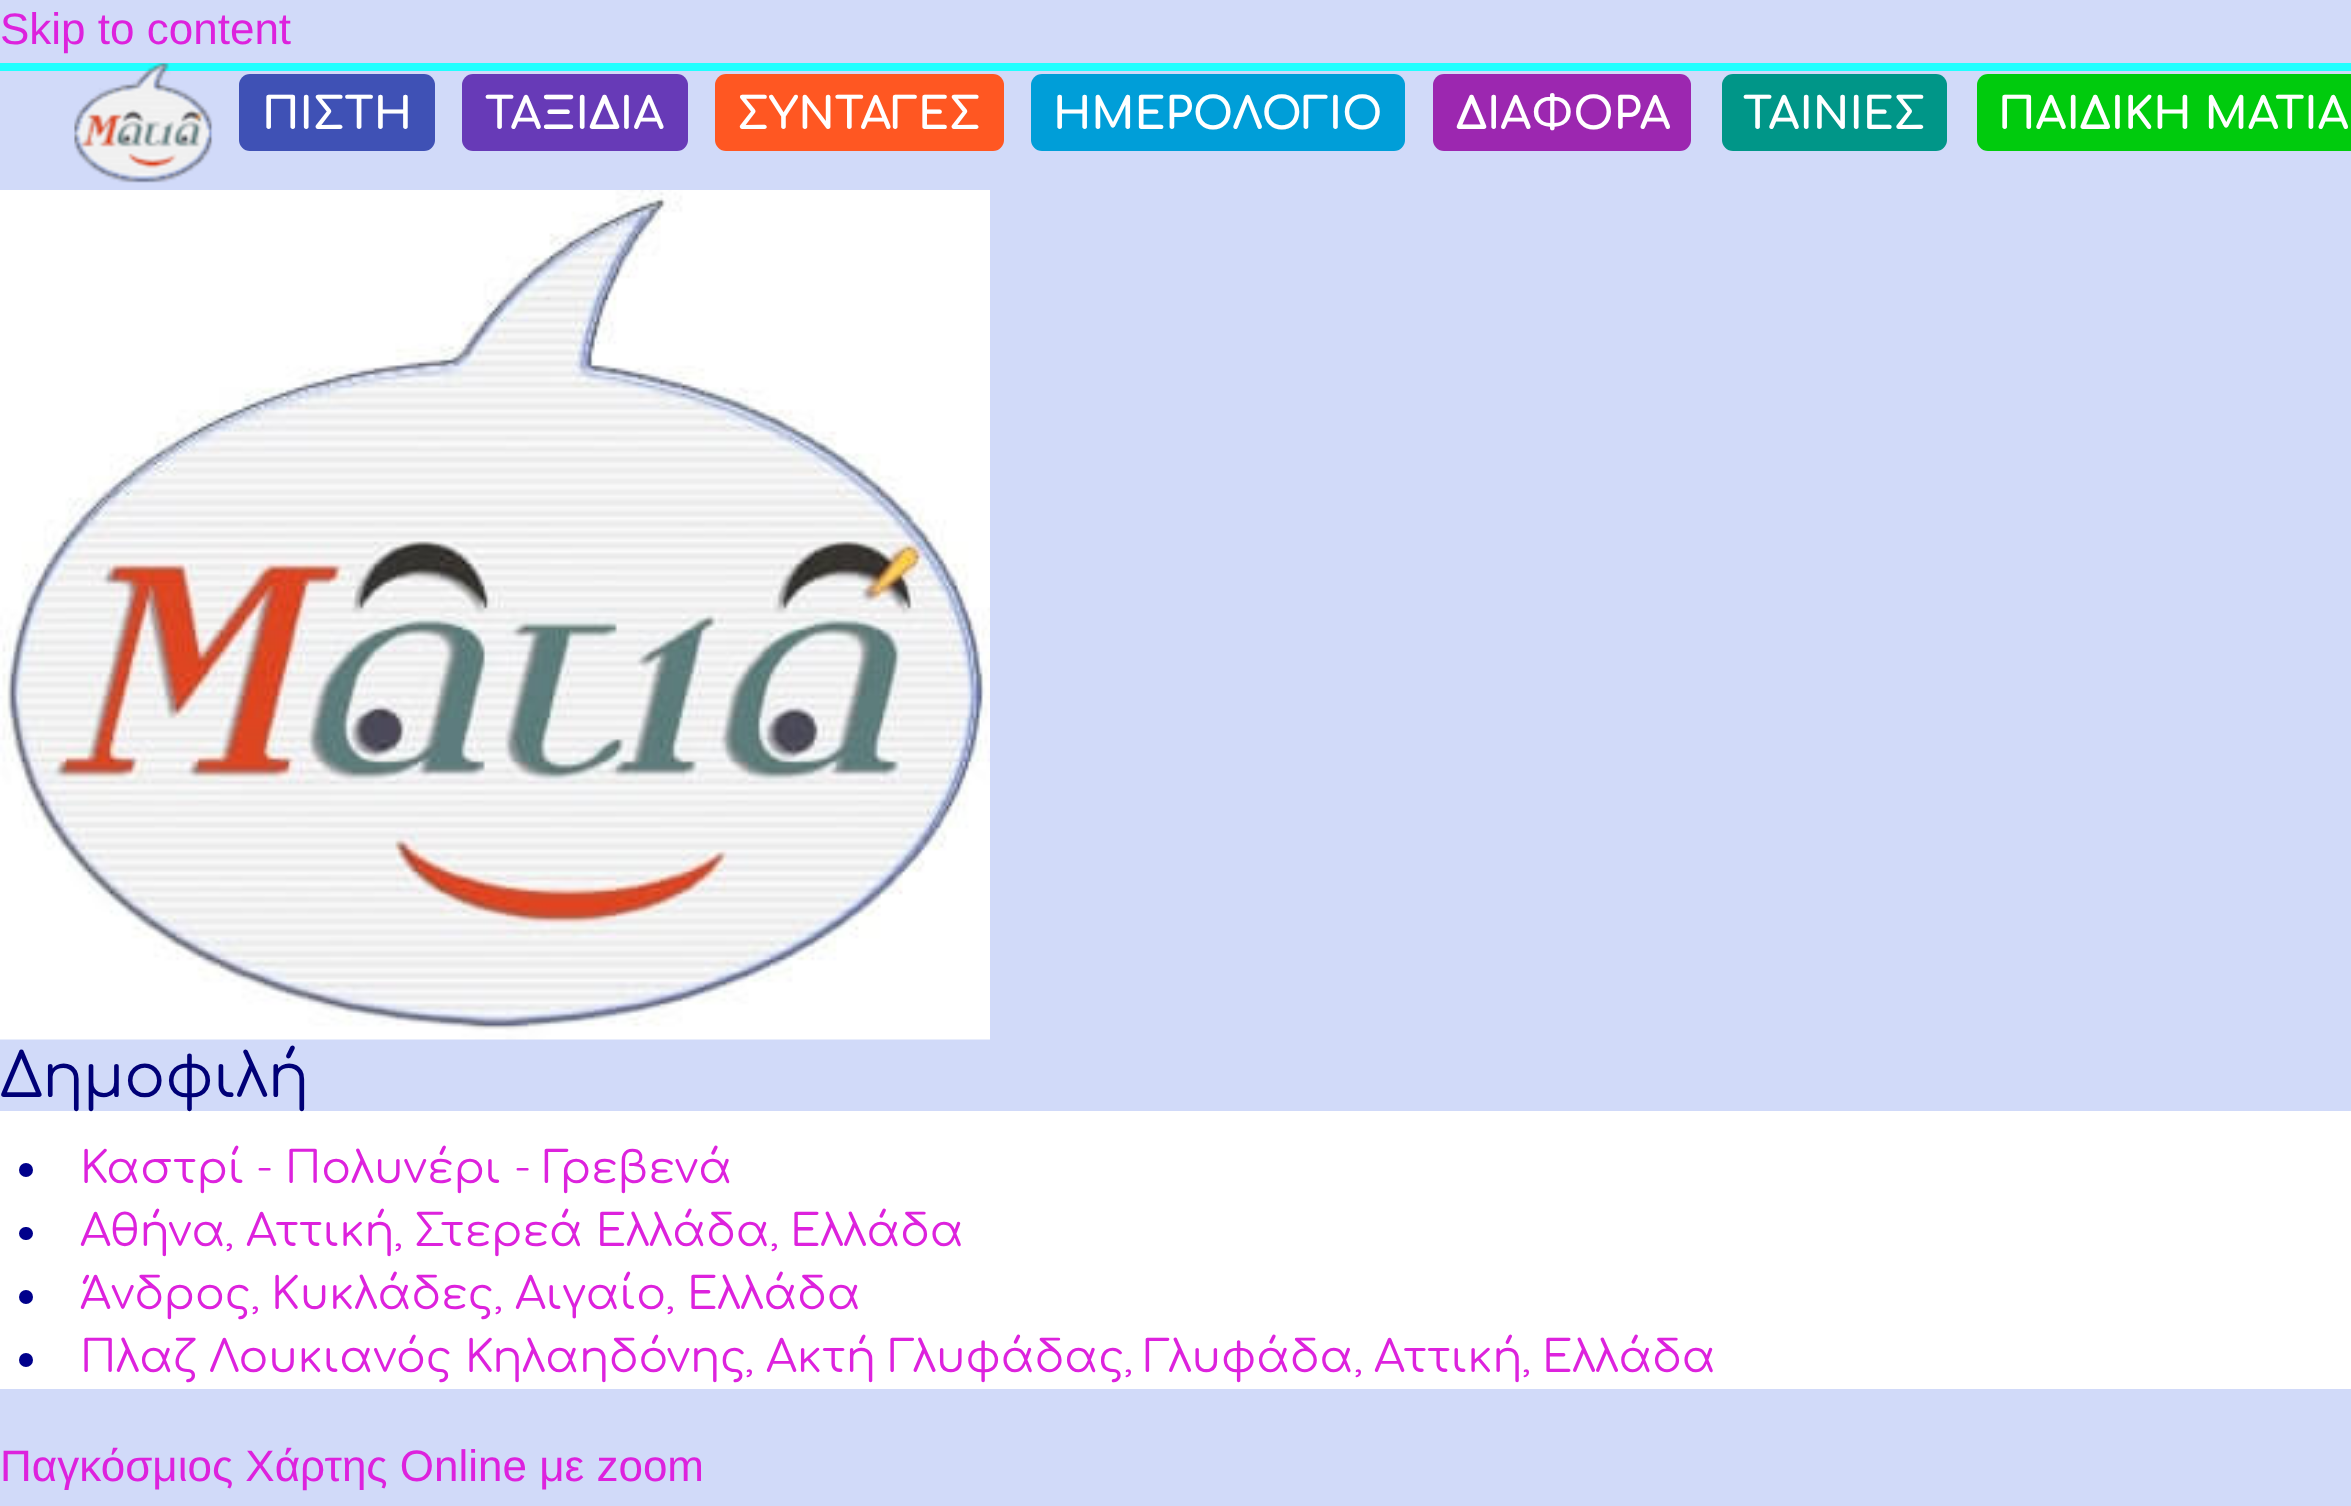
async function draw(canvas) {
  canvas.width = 2351;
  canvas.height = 1506;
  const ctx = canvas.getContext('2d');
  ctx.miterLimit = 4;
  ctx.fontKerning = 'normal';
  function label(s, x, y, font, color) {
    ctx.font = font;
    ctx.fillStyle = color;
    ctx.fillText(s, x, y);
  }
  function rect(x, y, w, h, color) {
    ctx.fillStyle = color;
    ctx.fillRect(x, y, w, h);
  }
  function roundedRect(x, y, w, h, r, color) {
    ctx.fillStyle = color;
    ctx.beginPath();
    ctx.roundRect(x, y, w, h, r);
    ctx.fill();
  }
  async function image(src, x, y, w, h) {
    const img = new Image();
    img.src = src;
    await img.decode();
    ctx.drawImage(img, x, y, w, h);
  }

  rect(0, 0, 2351, 1506, '#d1daf9');
  label('Skip to content', 0, 44, '44px Liberation Sans', '#d2d');
  rect(0, 63, 2351, 8, '#2ff');
  await image('assets/img1.png', 74, 63, 139, 120);
  roundedRect(239, 74, 196, 77, 11, '#3f51b5');
  label('ΠΙΣΤΗ', 262, 129, 'bold 44px Comfortaa', '#fff');
  roundedRect(462, 74, 226, 77, 11, '#673ab7');
  label('ΤΑΞΙΔΙΑ', 485, 129, 'bold 44px Comfortaa', '#fff');
  roundedRect(715, 74, 289, 77, 11, '#ff5722');
  label('ΣΥΝΤΑΓΕΣ', 737, 129, 'bold 44px Comfortaa', '#fff');
  roundedRect(1031, 74, 374, 77, 11, '#009ed8');
  label('ΗΜΕΡΟΛΟΓΙΟ', 1053, 129, 'bold 44px Comfortaa', '#fff');
  roundedRect(1433, 74, 258, 77, 11, '#9c27b0');
  label('ΔΙΑΦΟΡΑ', 1456, 129, 'bold 44px Comfortaa', '#fff');
  roundedRect(1722, 74, 225, 77, 11, '#009688');
  label('ΤΑΙΝΙΕΣ', 1743, 129, 'bold 44px Comfortaa', '#fff');
  ctx.fillStyle = '#00cb0d';
  ctx.beginPath();
  ctx.roundRect(1977, 74, 374, 77, [11, 0, 0, 11]);
  ctx.fill();
  label('ΠΑΙΔΙΚΗ ΜΑΤΙΑ', 1998, 129, 'bold 44px Comfortaa', '#fff');
  await image('assets/img2.png', 0, 190, 990, 850);
  rect(0, 1111, 2351, 278, '#fff');
  label('Δημοφιλή', 0, 1097, '60.5px Comfortaa', '#007');
  ctx.fillStyle = '#00008b';
  ctx.beginPath();
  ctx.arc(26, 1170, 7, 0, 2 * Math.PI);
  ctx.fill();
  label('Καστρί', 80, 1183, '44px Comfortaa', '#d2d');
  label('-', 256, 1183, '44px Quicksand', '#d2d');
  label('Πολυνέρι', 285, 1183, '44px Comfortaa', '#d2d');
  label('-', 514, 1183, '44px Quicksand', '#d2d');
  label('Γρεβενά', 543, 1183, '44px Comfortaa', '#d2d');
  roundedRect(19, 1227, 14, 13, 6.5, '#00008b');
  label('Αθήνα', 80, 1246, '44px Comfortaa', '#d2d');
  label('Αττική', 246, 1246, '44px Comfortaa', '#d2d');
  label('Στερεά Ελλάδα', 414, 1246, '44px Comfortaa', '#d2d');
  label('Ελλάδα', 790, 1246, '44px Comfortaa', '#d2d');
  label(',', 225, 1246, '44px Quicksand', '#d2d');
  label(',', 394, 1246, '44px Quicksand', '#d2d');
  label(',', 770, 1246, '44px Quicksand', '#d2d');
  ctx.fillStyle = '#00008b';
  ctx.beginPath();
  ctx.arc(26, 1297, 7, 0, 2 * Math.PI);
  ctx.fill();
  label('Άνδρος', 80, 1309, '44px Comfortaa', '#d2d');
  label('Κυκλάδες', 271, 1309, '44px Comfortaa', '#d2d');
  label('Αιγαίο', 515, 1309, '44px Comfortaa', '#d2d');
  label('Ελλάδα', 687, 1309, '44px Comfortaa', '#d2d');
  label(',', 251, 1309, '44px Quicksand', '#d2d');
  label(',', 494, 1309, '44px Quicksand', '#d2d');
  label(',', 666, 1309, '44px Quicksand', '#d2d');
  ctx.fillStyle = '#00008b';
  ctx.beginPath();
  ctx.arc(26, 1360, 7, 0, 2 * Math.PI);
  ctx.fill();
  label('Πλαζ Λουκιανός Κηλαηδόνης', 80, 1372, '44px Comfortaa', '#d2d');
  label('Ακτή Γλυφάδας', 766, 1372, '44px Comfortaa', '#d2d');
  label('Γλυφάδα', 1144, 1372, '44px Comfortaa', '#d2d');
  label('Αττική', 1374, 1372, '44px Comfortaa', '#d2d');
  label('Ελλάδα', 1542, 1372, '44px Comfortaa', '#d2d');
  label(',', 745, 1372, '44px Quicksand', '#d2d');
  label(',', 1124, 1372, '44px Quicksand', '#d2d');
  label(',', 1354, 1372, '44px Quicksand', '#d2d');
  label(',', 1522, 1372, '44px Quicksand', '#d2d');
  label('Παγκόσμιος Χάρτης Online με zoom', 0, 1481, '44px Liberation Sans', '#d2d');
}

draw(document.querySelector('canvas'));
